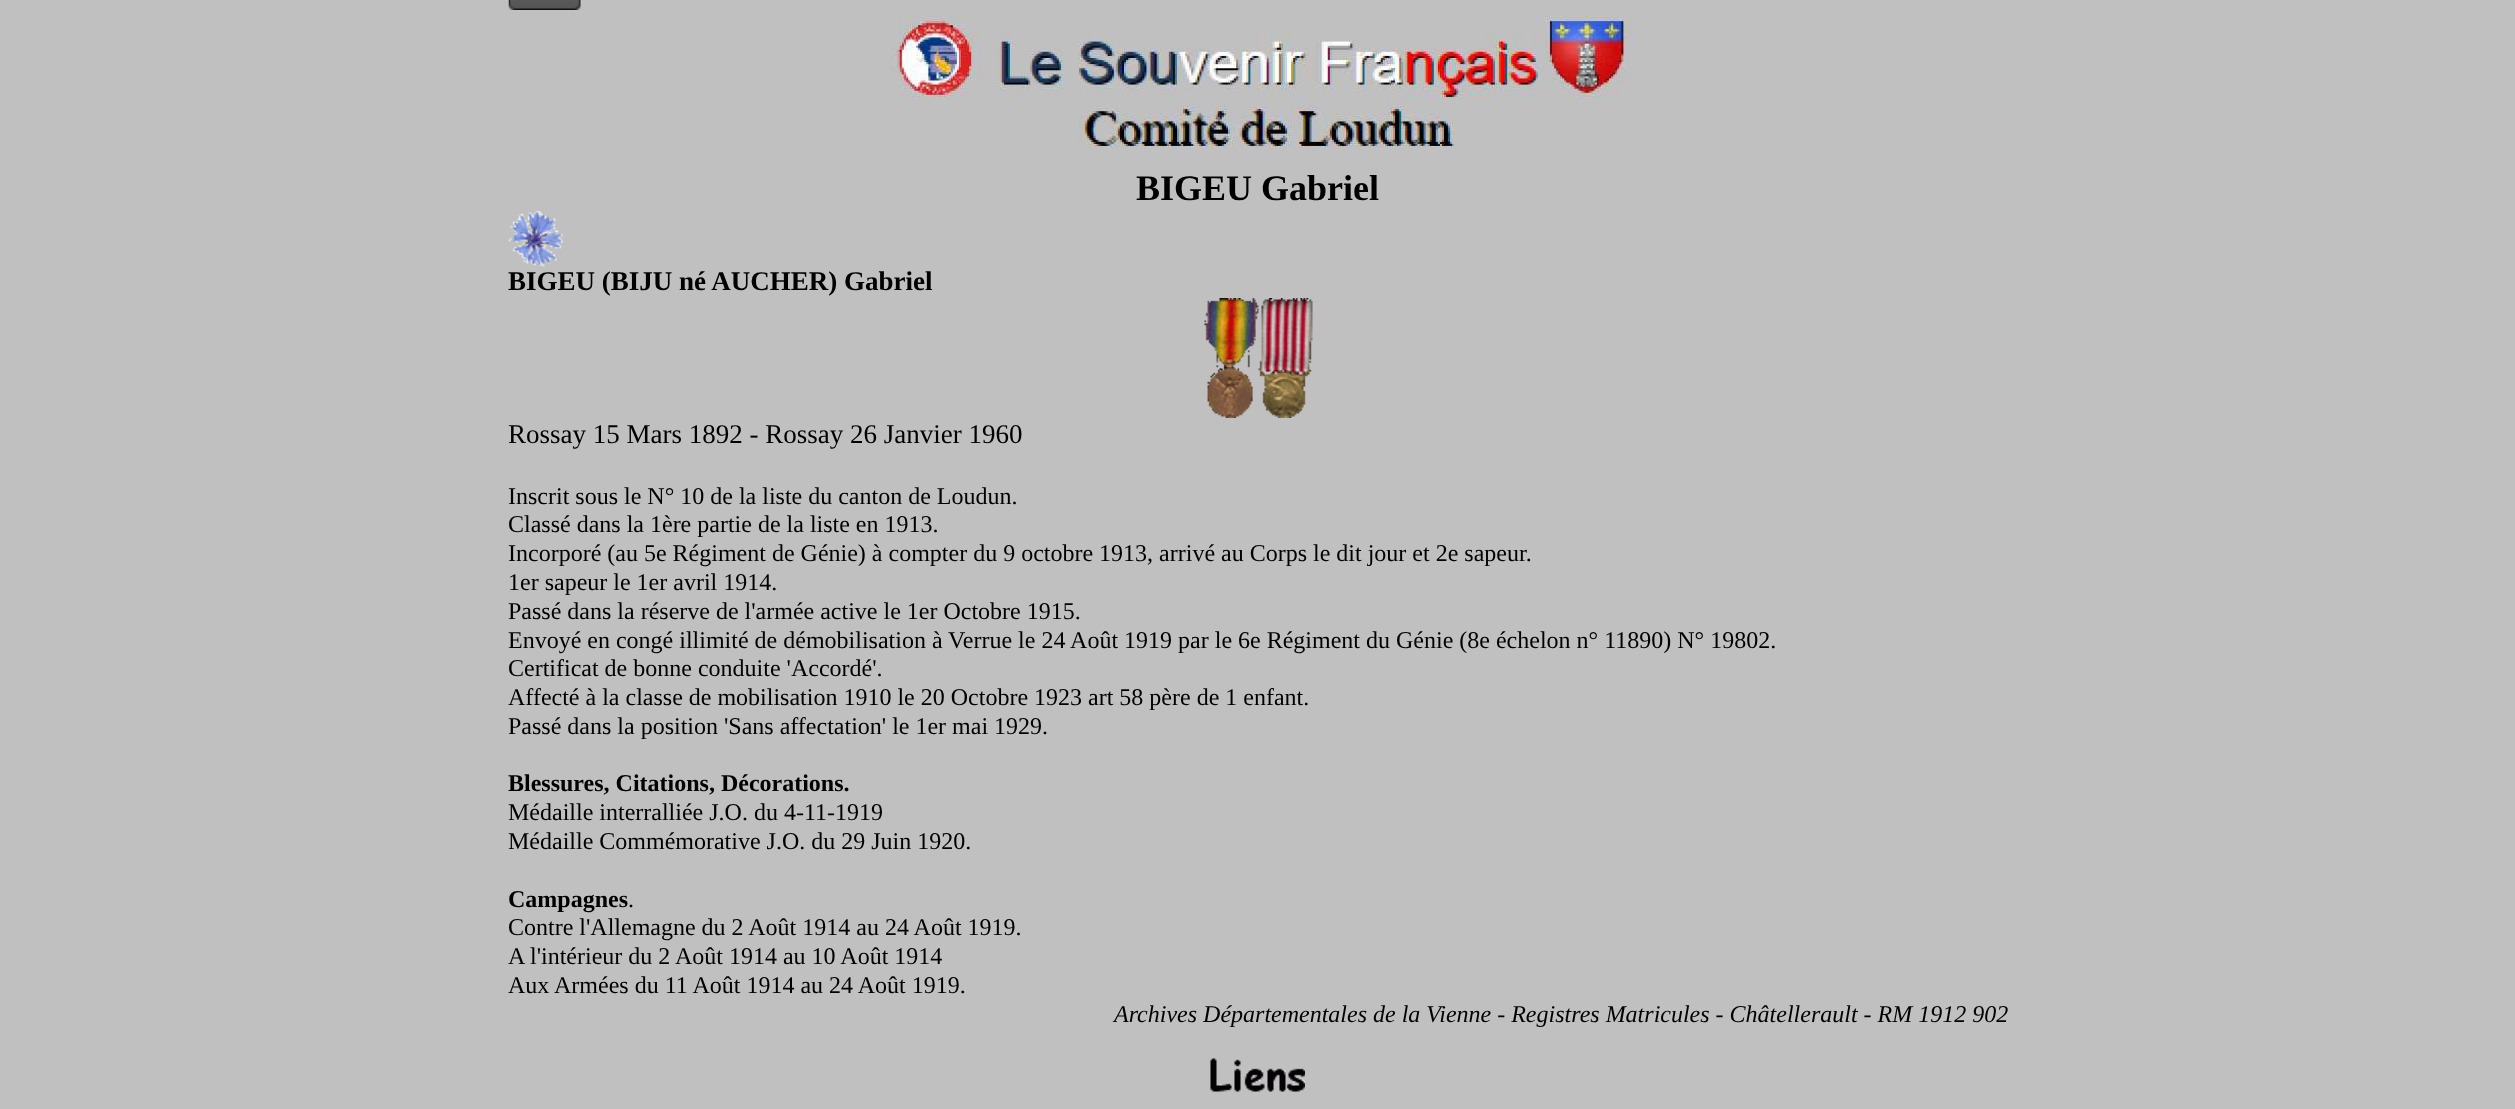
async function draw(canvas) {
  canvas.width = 2515;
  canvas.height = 1109;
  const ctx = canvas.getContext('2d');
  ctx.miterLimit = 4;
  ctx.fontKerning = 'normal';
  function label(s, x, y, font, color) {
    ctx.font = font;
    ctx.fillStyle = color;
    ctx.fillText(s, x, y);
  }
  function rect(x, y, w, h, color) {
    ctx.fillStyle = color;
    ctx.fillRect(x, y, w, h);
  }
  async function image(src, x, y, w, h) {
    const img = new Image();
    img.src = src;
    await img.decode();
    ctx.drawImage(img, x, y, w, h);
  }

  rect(0, 0, 2515, 1109, '#c0c0c0');
  await image('assets/img1.png', 508, 0, 73, 10);
  await image('assets/img2.png', 891, 16, 743, 132);
  label('BIGEU Gabriel', 1136, 200, 'bold 36px Liberation Serif', '#000');
  await image('assets/img3.png', 508, 211, 55, 56);
  label('BIGEU (BIJU né AUCHER) Gabriel', 508, 290, 'bold 27px Liberation Serif', '#000');
  await image('assets/img4.png', 1204, 298, 55, 120);
  await image('assets/img5.png', 1258, 298, 55, 120);
  label('Rossay 15 Mars 1892 - Rossay 26 Janvier 1960', 508, 443, '27px Liberation Serif', '#000');
  label('Inscrit sous le N° 10 de la liste du canton de Loudun.', 508, 504, '24px Liberation Serif', '#000');
  label('Classé dans la 1ère partie de la liste en 1913.', 508, 532, '24px Liberation Serif', '#000');
  label('Incorporé (au 5e Régiment de Génie) à compter du 9 octobre 1913, arrivé au Corps le dit jour et 2e sapeur.', 508, 561, '24px Liberation Serif', '#000');
  label('1er sapeur le 1er avril 1914.', 508, 590, '24px Liberation Serif', '#000');
  label('Passé dans la réserve de l\'armée active le 1er Octobre 1915.', 508, 619, '24px Liberation Serif', '#000');
  label('Envoyé en congé illimité de démobilisation à Verrue le 24 Août 1919 par le 6e Régiment du Génie (8e échelon n° 11890) N° 19802.', 508, 648, '24px Liberation Serif', '#000');
  label('Certificat de bonne conduite \'Accordé\'.', 508, 676, '24px Liberation Serif', '#000');
  label('Affecté à la classe de mobilisation 1910 le 20 Octobre 1923 art 58 père de 1 enfant.', 508, 705, '24px Liberation Serif', '#000');
  label('Passé dans la position \'Sans affectation\' le 1er mai 1929.', 508, 734, '24px Liberation Serif', '#000');
  label('Blessures, Citations, Décorations.', 508, 791, 'bold 24px Liberation Serif', '#000');
  label('Médaille interralliée J.O. du 4-11-1919', 508, 820, '24px Liberation Serif', '#000');
  label('Médaille Commémorative J.O. du 29 Juin 1920.', 508, 849, '24px Liberation Serif', '#000');
  label('Campagnes', 508, 907, 'bold 24px Liberation Serif', '#000');
  label('.', 628, 907, '24px Liberation Serif', '#000');
  label('Contre l\'Allemagne du 2 Août 1914 au 24 Août 1919.', 508, 935, '24px Liberation Serif', '#000');
  label('A l\'intérieur du 2 Août 1914 au 10 Août 1914', 508, 964, '24px Liberation Serif', '#000');
  label('Aux Armées du 11 Août 1914 au 24 Août 1919.', 508, 993, '24px Liberation Serif', '#000');
  label('Archives Départementales de la Vienne - Registres Matricules - Châtellerault - RM 1912 902', 1114, 1022, 'italic 24px Liberation Serif', '#000');
  await image('assets/img6.png', 1210, 1058, 95, 34);
}

draw(document.querySelector('canvas'));
